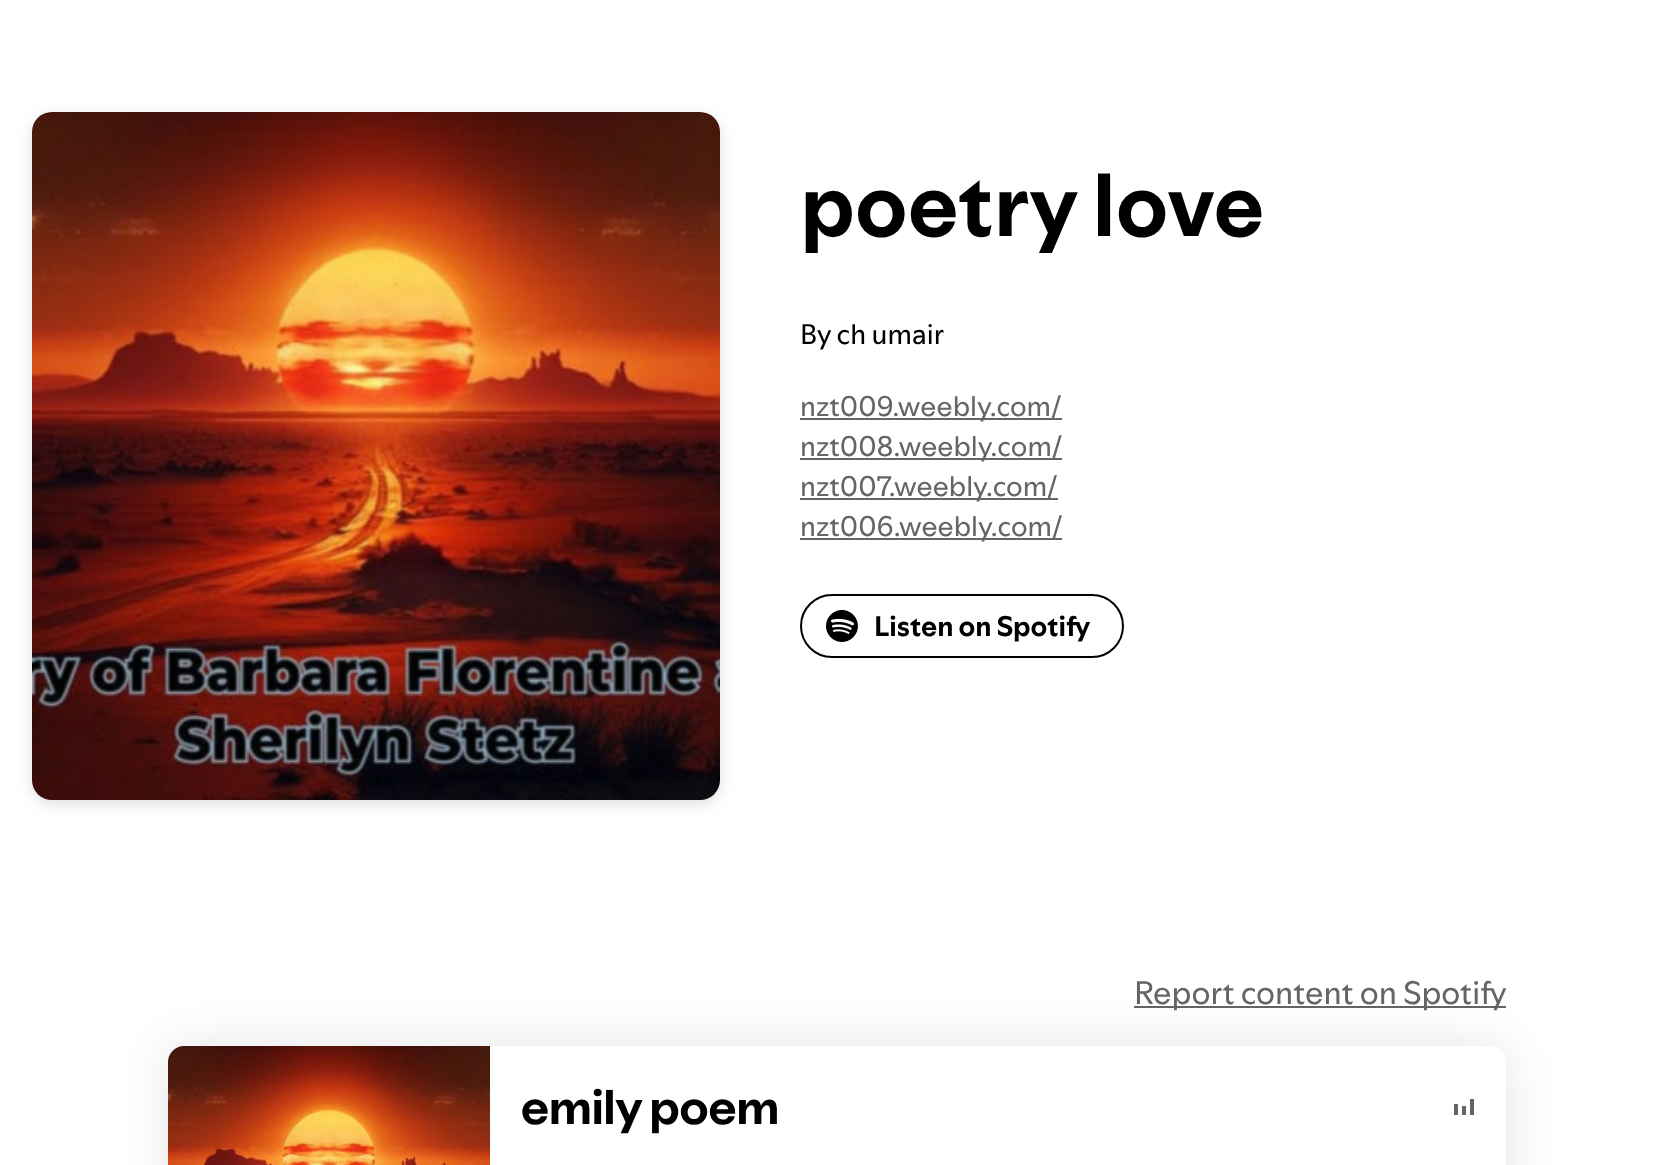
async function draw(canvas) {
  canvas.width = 1674;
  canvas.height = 1165;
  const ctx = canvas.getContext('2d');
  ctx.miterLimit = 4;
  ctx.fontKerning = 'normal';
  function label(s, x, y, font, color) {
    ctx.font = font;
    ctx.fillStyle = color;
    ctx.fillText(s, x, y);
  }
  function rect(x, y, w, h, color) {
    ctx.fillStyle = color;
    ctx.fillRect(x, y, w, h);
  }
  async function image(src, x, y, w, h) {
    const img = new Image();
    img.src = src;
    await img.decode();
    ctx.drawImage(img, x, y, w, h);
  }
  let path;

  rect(0, 0, 1674, 1165, '#fff');
  ctx.fillStyle = '#dedede';
  ctx.filter = 'blur(7px)';
  ctx.beginPath();
  ctx.roundRect(32, 116, 688, 688, 20);
  ctx.fill();
  ctx.filter = 'none';
  await image('assets/img1.png', 32, 112, 688, 688);
  label('poetry love', 800, 236, 'bold 88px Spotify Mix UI', '#000');
  label('By ch umair', 800, 344, '28px Spotify Mix UI', '#000');
  rect(800, 418, 262, 2, '#656565');
  label('nzt009.weebly.com/', 800, 416, '28px Spotify Mix UI', '#656565');
  rect(800, 458, 262, 2, '#656565');
  label('nzt008.weebly.com/', 800, 456, '28px Spotify Mix UI', '#656565');
  rect(800, 498, 258, 2, '#656565');
  label('nzt007.weebly.com/', 800, 496, '28px Spotify Mix UI', '#656565');
  rect(800, 538, 262, 2, '#656565');
  label('nzt006.weebly.com/', 800, 536, '28px Spotify Mix UI', '#656565');
  ctx.beginPath();
  ctx.roundRect(801, 595, 322, 62, 31);
  ctx.strokeStyle = '#000';
  ctx.lineWidth = 2;
  ctx.stroke();
  await image('assets/img2.png', 826, 610, 32, 32);
  label('Listen on Spotify', 874, 636, 'bold 28px Spotify Mix UI', '#000');
  rect(1134, 1006, 372, 2, '#656565');
  label('Report content on Spotify', 1134, 1004, '32px Spotify Mix UI', '#656565');
  ctx.fillStyle = '#0000001a';
  ctx.filter = 'blur(24px)';
  ctx.beginPath();
  ctx.roundRect(168, 1046, 1338, 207, 16);
  ctx.fill();
  ctx.filter = 'none';
  ctx.fillStyle = '#fff';
  path = new Path2D('M184 1046H1490C1499 1046 1506 1053 1506 1062V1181H168V1062C168 1053 175 1046 184 1046Z');
  ctx.fill(path);
  await image('assets/img3.png', 168, 1046, 322, 119);
  label('emily poem', 521, 1124, 'bold 48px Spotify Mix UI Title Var', '#000');
  rect(1454, 1104, 4, 11, '#656565');
  rect(1462, 1106, 4, 9, '#656565');
  rect(1470, 1099, 4, 16, '#656565');
}

draw(document.querySelector('canvas'));
